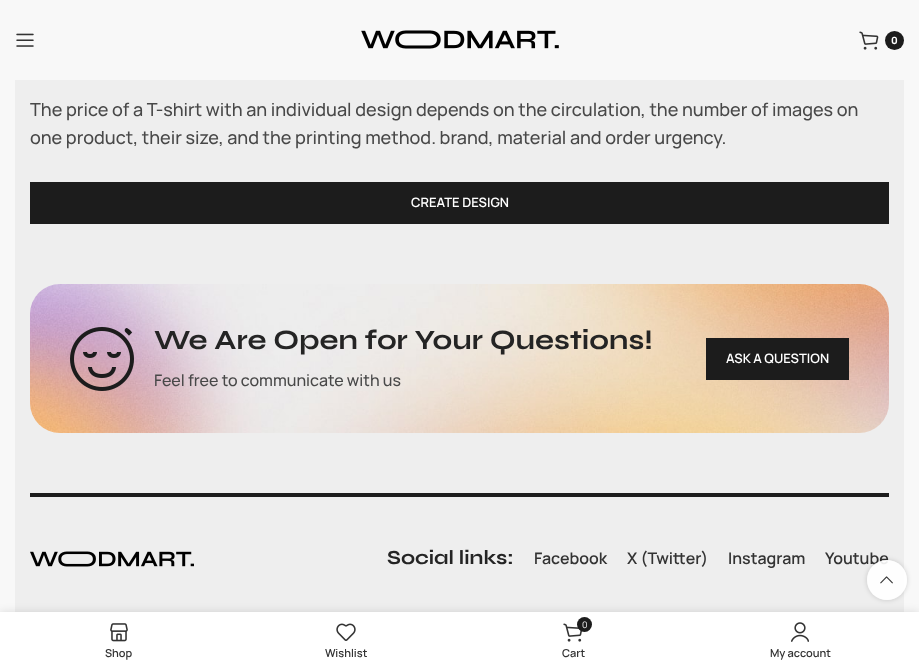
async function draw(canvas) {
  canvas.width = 919;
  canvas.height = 667;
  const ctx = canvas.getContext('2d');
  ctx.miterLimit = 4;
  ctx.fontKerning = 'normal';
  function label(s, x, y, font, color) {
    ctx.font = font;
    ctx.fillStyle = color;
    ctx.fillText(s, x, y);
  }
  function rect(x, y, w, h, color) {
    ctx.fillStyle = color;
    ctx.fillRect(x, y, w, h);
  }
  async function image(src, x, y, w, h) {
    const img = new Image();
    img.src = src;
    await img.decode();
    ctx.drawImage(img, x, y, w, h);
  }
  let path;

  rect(0, 0, 919, 667, '#eee');
  ctx.strokeStyle = '#f8f8f8';
  ctx.lineWidth = 15;
  ctx.strokeRect(7.5, -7.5, 904, 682);
  rect(15, 0, 889, 80, '#f8f8f8');
  await image('assets/img1.png', 16, 33, 18, 14);
  await image('assets/img2.png', 361, 30, 198, 19);
  await image('assets/img3.png', 859, 31, 20, 19);
  ctx.fillStyle = '#1c1c1c';
  ctx.beginPath();
  ctx.arc(894.5, 40.5, 9.5, 0, 2 * Math.PI);
  ctx.fill();
  label('0', 891, 44, '800 10px Manrope', '#fff');
  label('The price of a T-shirt with an individual design depends on the circulation, the number of images on', 30, 116, '500 18px Manrope', '#484848');
  label('one product, their size, and the printing method. brand, material and order urgency.', 30, 144, '500 18px Manrope', '#484848');
  rect(30, 182, 859, 42, '#1c1c1c');
  label('CREATE DESIGN', 411, 207, '600 13px Manrope', '#fff');
  await image('assets/img4.png', 30, 284, 859, 149);
  await image('assets/img5.png', 70, 327, 64, 64);
  label('We Are Open for Your Questions!', 154, 349, 'bold 28px Syne', '#242424');
  label('Feel free to communicate with us', 154, 386, '500 16px Manrope', '#484848');
  rect(706, 338, 143, 42, '#1c1c1c');
  label('ASK A QUESTION', 726, 363, '600 13px Manrope', '#fff');
  rect(30, 493, 859, 4, '#1c1c1c');
  await image('assets/img6.png', 30, 551, 164, 16);
  label('Social links:', 387, 564, 'bold 20px Syne', '#242424');
  label('Facebook', 534, 564, '600 16px Manrope', '#333');
  label('X (Twitter)', 627, 564, '600 16px Manrope', '#333');
  label('Instagram', 728, 564, '600 16px Manrope', '#333');
  label('Youtube', 825, 564, '600 16px Manrope', '#333');
  ctx.save();
  path = new Path2D('M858 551H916V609H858ZM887 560C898 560 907 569 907 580C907 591 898 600 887 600C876 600 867 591 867 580C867 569 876 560 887 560Z');
  ctx.clip(path, 'evenodd');
  ctx.fillStyle = '#0000002b';
  ctx.filter = 'blur(2.5px)';
  ctx.beginPath();
  ctx.roundRect(867, 560, 40, 40, 20);
  ctx.fill();
  ctx.filter = 'none';
  ctx.restore();
  ctx.fillStyle = '#ffffffe6';
  ctx.beginPath();
  ctx.arc(887, 580, 20, 0, 2 * Math.PI);
  ctx.fill();
  await image('assets/img7.png', 880, 576, 13, 8);
  ctx.fillStyle = '#0000001f';
  ctx.filter = 'blur(4.5px)';
  ctx.beginPath();
  ctx.rect(0, 612, 919, 55);
  ctx.fill();
  ctx.filter = 'none';
  rect(0, 612, 919, 55, '#fff');
  await image('assets/img8.png', 110, 623, 18, 19);
  label('Shop', 105, 657, '600 11px Manrope', '#333');
  await image('assets/img9.png', 336, 623, 20, 18);
  label('Wishlist', 325, 657, '600 11px Manrope', '#333');
  await image('assets/img10.png', 563, 623, 19, 19);
  ctx.fillStyle = '#1c1c1c';
  ctx.beginPath();
  ctx.arc(584.5, 624.5, 7.5, 0, 2 * Math.PI);
  ctx.fill();
  label('0', 582, 628, '9px Manrope', '#fff');
  label('Cart', 562, 657, '600 11px Manrope', '#333');
  await image('assets/img11.png', 791, 622, 18, 20);
  label('My account', 770, 657, '600 11px Manrope', '#333');
}

draw(document.querySelector('canvas'));
